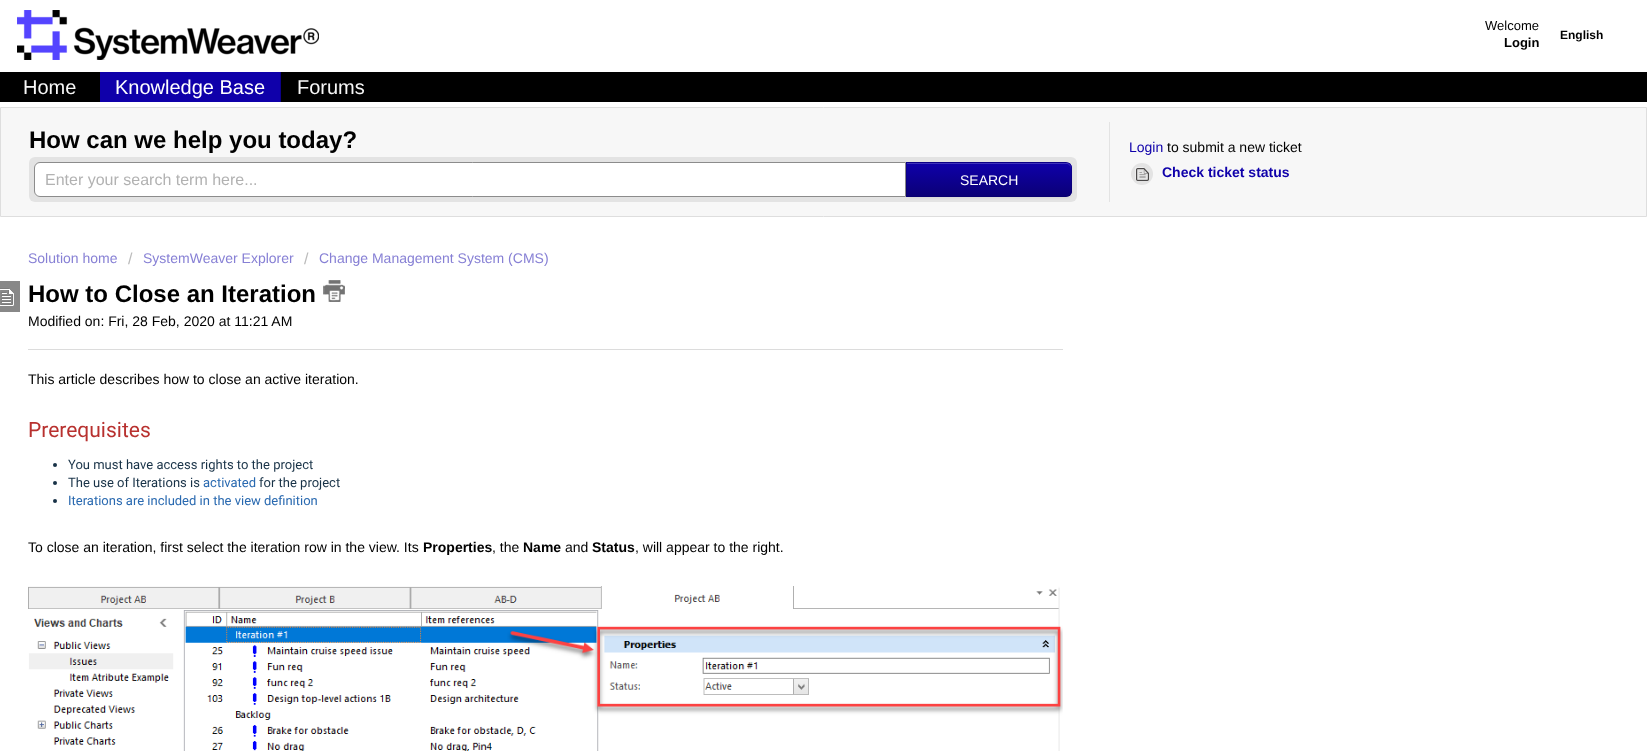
async function draw(canvas) {
  canvas.width = 1647;
  canvas.height = 751;
  const ctx = canvas.getContext('2d');
  ctx.miterLimit = 4;
  ctx.fontKerning = 'normal';
  function label(s, x, y, font, color) {
    ctx.font = font;
    ctx.fillStyle = color;
    ctx.fillText(s, x, y);
  }
  function rect(x, y, w, h, color) {
    ctx.fillStyle = color;
    ctx.fillRect(x, y, w, h);
  }
  function roundedRect(x, y, w, h, r, color) {
    ctx.fillStyle = color;
    ctx.beginPath();
    ctx.roundRect(x, y, w, h, r);
    ctx.fill();
  }
  async function image(src, x, y, w, h) {
    const img = new Image();
    img.src = src;
    await img.decode();
    ctx.drawImage(img, x, y, w, h);
  }
  let gradient, path;

  rect(0, 0, 1647, 751, '#fff');
  await image('assets/img1.png', 17, 10, 302, 50);
  label('Welcome', 1485, 30, '13px Liberation Sans', '#000');
  label('Login', 1504, 47, 'bold 13px Liberation Sans', '#000');
  label('English', 1560, 39, 'bold 12px Liberation Sans', '#000');
  rect(0, 72, 1647, 30, '#000');
  label('Home', 23, 94, '20px Liberation Sans', '#f7f7f7');
  rect(100, 72, 180, 30, '#0f00aa');
  rect(280, 72, 1, 30, '#0c0088');
  label('Knowledge Base', 115, 94, '20px Liberation Sans', '#fff');
  label('Forums', 297, 94, '20px Liberation Sans', '#f7f7f7');
  ctx.beginPath();
  ctx.rect(0.5, 107.5, 1646, 109);
  ctx.fill();
  ctx.strokeStyle = '#dedede';
  ctx.stroke();
  rect(1109, 122, 1, 80, '#e3e3e3');
  label('How can we help you today?', 29, 148, 'bold 24px Liberation Sans', '#000');
  roundedRect(29, 157, 1048, 45, 6, '#e3e3e3');
  ctx.fillStyle = '#fff';
  ctx.beginPath();
  ctx.roundRect(34.5, 162.5, 871, 34, [5.5, 0, 0, 5.5]);
  ctx.fill();
  ctx.strokeStyle = '#8c8c8c';
  ctx.stroke();
  label('Enter your search term here...', 45, 185, '16px Liberation Sans', '#b2b2b2');
  ctx.fillStyle = '#0000000d';
  ctx.filter = 'blur(1px)';
  ctx.beginPath();
  ctx.roundRect(906, 163, 166, 35, 6);
  ctx.fill();
  ctx.filter = 'none';
  ctx.fillStyle = '#0d0096';
  ctx.beginPath();
  ctx.roundRect(906, 162, 166, 35, [0, 6, 6, 0]);
  ctx.fill();
  ctx.save();
  ctx.beginPath();
  ctx.roundRect(906, 162, 166, 35, [0, 6, 6, 0]);
  ctx.clip();
  gradient = ctx.createLinearGradient(989, 163, 989, 196);
  gradient.addColorStop(0, '#0f00aa');
  gradient.addColorStop(1, '#0b0077');
  ctx.fillStyle = gradient;
  ctx.fillRect(906, 163, 166, 33);
  ctx.restore();
  ctx.fillStyle = '#3f33ba';
  path = new Path2D('M907 164H1066C1069 164 1071 166 1071 169V168C1071 165 1069 163 1066 163H907Z');
  ctx.fill(path);
  ctx.fillStyle = '#0000001a';
  path = new Path2D('M906 162L907 163H1067L1070 164C1069 163 1068 162 1066 162Z');
  ctx.fill(path);
  path = new Path2D('M1072 191V168C1072 166.5 1071 165 1070 164L1069.5 164.5C1070.5 165 1071 166.5 1071 168V191C1071 192.5 1070.5 194 1069.5 194.5L1070 195C1071 194 1072 192.5 1072 191Z');
  ctx.fill(path);
  ctx.fillStyle = '#00000040';
  path = new Path2D('M1066 197C1068 197 1069 196 1070 195L1067 196H907L906 197Z');
  ctx.fill(path);
  ctx.fillStyle = '#0000001a';
  path = new Path2D('M906 162V197L907 196V163Z');
  ctx.fill(path);
  label('SEARCH', 960, 185, '14px Liberation Sans', '#fff');
  label('Login', 1129, 152, '14px Liberation Sans', '#0f00aa');
  label('to submit a new ticket', 1167, 152, '14px Liberation Sans', '#000');
  ctx.fillStyle = '#e3e3e3';
  ctx.beginPath();
  ctx.arc(1142, 174, 11, 0, 2 * Math.PI);
  ctx.fill();
  await image('assets/img2.png', 1135, 167, 14, 14);
  label('Check ticket status', 1162, 177, 'bold 14px Liberation Sans', '#0f00aa');
  label('Solution home', 28, 263, '14px Liberation Sans', '#8780d5');
  label('/', 128, 264, '16px Liberation Sans', '#bbb');
  label('SystemWeaver Explorer', 143, 263, '14px Liberation Sans', '#8780d5');
  label('/', 304, 264, '16px Liberation Sans', '#bbb');
  label('Change Management System (CMS)', 319, 263, '14px Liberation Sans', '#8780d5');
  rect(0, 281, 20, 31, '#888');
  await image('assets/img3.png', 0, 288, 14, 18);
  label('How to Close an Iteration', 28, 302, 'bold 24px Liberation Sans', '#000');
  await image('assets/img4.png', 323, 280, 22, 22);
  label('Modified on: Fri, 28 Feb, 2020 at 11:21 AM', 28, 326, '14px Liberation Sans', '#000');
  rect(28, 349, 1035, 1, '#dcdcdc');
  label('This article describes how to close an active iteration.', 28, 384, '14px Liberation Sans', '#000');
  label('Prerequisites', 28, 437, '21px Roboto', '#b8312f');
  ctx.fillStyle = '#183247';
  ctx.beginPath();
  ctx.arc(55, 465, 2, 0, 2 * Math.PI);
  ctx.fill();
  label('You must have access rights to the project', 68, 469, '13px Roboto', '#183247');
  ctx.beginPath();
  ctx.arc(55, 483, 2, 0, 2 * Math.PI);
  ctx.fill();
  label('The use of Iterations is', 68, 487, '13px Roboto', '#183247');
  label('activated', 203, 487, '13px Roboto', '#2969b0');
  label('for the project', 259, 487, '13px Roboto', '#183247');
  ctx.beginPath();
  ctx.arc(55, 501, 2, 0, 2 * Math.PI);
  ctx.fill();
  label('Iterations are included in the view definition', 68, 505, '13px Roboto', '#2969b0');
  label('To close an iteration, first select the iteration row in the view. Its', 28, 552, '14px Liberation Sans', '#000');
  label('Properties', 423, 552, 'bold 14px Liberation Sans', '#000');
  label(', the', 492, 552, '14px Liberation Sans', '#000');
  label('Name', 523, 552, 'bold 14px Liberation Sans', '#000');
  label('and', 565, 552, '14px Liberation Sans', '#000');
  label('Status', 592, 552, 'bold 14px Liberation Sans', '#000');
  label(', will appear to the right.', 635, 552, '14px Liberation Sans', '#000');
  await image('assets/img5.png', 28, 586, 1035, 165);
}

draw(document.querySelector('canvas'));
